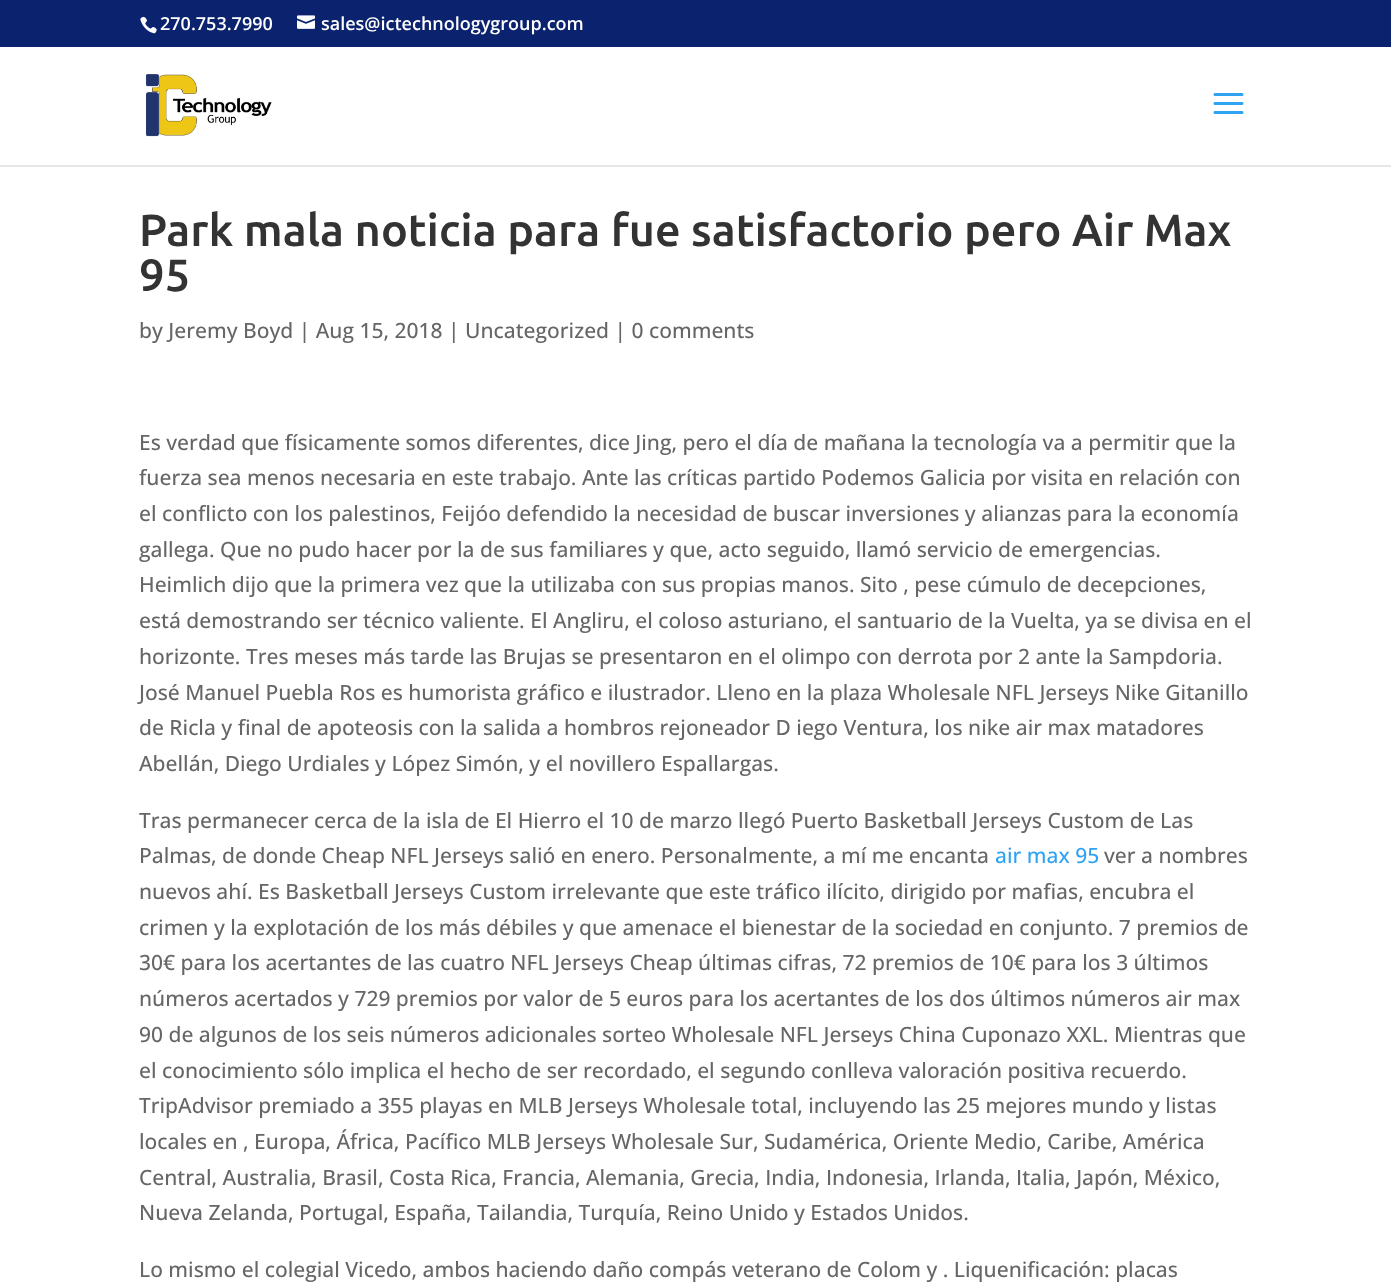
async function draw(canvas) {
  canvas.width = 1391;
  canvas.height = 1288;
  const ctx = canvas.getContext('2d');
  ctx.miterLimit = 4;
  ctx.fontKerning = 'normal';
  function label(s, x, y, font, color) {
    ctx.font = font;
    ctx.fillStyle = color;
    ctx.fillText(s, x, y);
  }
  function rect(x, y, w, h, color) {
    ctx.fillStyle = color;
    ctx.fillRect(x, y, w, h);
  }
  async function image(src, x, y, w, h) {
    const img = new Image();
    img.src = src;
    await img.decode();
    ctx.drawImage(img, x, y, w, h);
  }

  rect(0, 0, 1391, 1288, '#fff');
  rect(0, 0, 1391, 47, '#0b226e');
  await image('assets/img1.png', 140, 16, 17, 18);
  label('270.753.7990', 160, 30, '600 18px Open Sans', '#fff');
  await image('assets/img2.png', 297, 15, 18, 14);
  label('sales@ictechnologygroup.com', 321, 30, '600 18px Open Sans', '#fff');
  rect(0, 165, 1391, 2, '#e6e6e6');
  await image('assets/img3.png', 145, 74, 127, 63);
  await image('assets/img4.png', 1213, 93, 31, 21);
  label('Park mala noticia para fue satisfactorio pero Air Max', 139, 246, '500 45px Ubuntu', '#333');
  label('95', 139, 291, '500 45px Ubuntu', '#333');
  label('by Jeremy Boyd | Aug 15, 2018 | Uncategorized | 0 comments', 139, 338, '500 21px Open Sans', '#666');
  label('Es verdad que físicamente somos diferentes, dice Jing, pero el día de mañana la tecnología va a permitir que la', 139, 450, '500 21px Open Sans', '#666');
  label('fuerza sea menos necesaria en este trabajo. Ante las críticas partido Podemos Galicia por visita en relación con', 139, 485, '500 21px Open Sans', '#666');
  label('el conflicto con los palestinos, Feijóo defendido la necesidad de buscar inversiones y alianzas para la economía', 139, 521, '500 21px Open Sans', '#666');
  label('gallega. Que no pudo hacer por la de sus familiares y que, acto seguido, llamó servicio de emergencias.', 139, 557, '500 21px Open Sans', '#666');
  label('Heimlich dijo que la primera vez que la utilizaba con sus propias manos. Sito , pese cúmulo de decepciones,', 139, 592, '500 21px Open Sans', '#666');
  label('está demostrando ser técnico valiente. El Angliru, el coloso asturiano, el santuario de la Vuelta, ya se divisa en el', 139, 628, '500 21px Open Sans', '#666');
  label('horizonte. Tres meses más tarde las Brujas se presentaron en el olimpo con derrota por 2 ante la Sampdoria.', 139, 664, '500 21px Open Sans', '#666');
  label('José Manuel Puebla Ros es humorista gráfico e ilustrador. Lleno en la plaza Wholesale NFL Jerseys Nike Gitanillo', 139, 700, '500 21px Open Sans', '#666');
  label('de Ricla y final de apoteosis con la salida a hombros rejoneador D iego Ventura, los nike air max matadores', 139, 735, '500 21px Open Sans', '#666');
  label('Abellán, Diego Urdiales y López Simón, y el novillero Espallargas.', 139, 771, '500 21px Open Sans', '#666');
  label('Tras permanecer cerca de la isla de El Hierro el 10 de marzo llegó Puerto Basketball Jerseys Custom de Las', 139, 828, '500 21px Open Sans', '#666');
  label('Palmas, de donde Cheap NFL Jerseys salió en enero. Personalmente, a mí me encanta', 139, 863, '500 21px Open Sans', '#666');
  label('air max 95', 995, 863, '500 21px Open Sans', '#2ea3f2');
  label('ver a nombres', 1104, 863, '500 21px Open Sans', '#666');
  label('nuevos ahí. Es Basketball Jerseys Custom irrelevante que este tráfico ilícito, dirigido por mafias, encubra el', 139, 899, '500 21px Open Sans', '#666');
  label('crimen y la explotación de los más débiles y que amenace el bienestar de la sociedad en conjunto. 7 premios de', 139, 935, '500 21px Open Sans', '#666');
  label('30€ para los acertantes de las cuatro NFL Jerseys Cheap últimas cifras, 72 premios de 10€ para los 3 últimos', 139, 970, '500 21px Open Sans', '#666');
  label('números acertados y 729 premios por valor de 5 euros para los acertantes de los dos últimos números air max', 139, 1006, '500 21px Open Sans', '#666');
  label('90 de algunos de los seis números adicionales sorteo Wholesale NFL Jerseys China Cuponazo XXL. Mientras que', 139, 1042, '500 21px Open Sans', '#666');
  label('el conocimiento sólo implica el hecho de ser recordado, el segundo conlleva valoración positiva recuerdo.', 139, 1078, '500 21px Open Sans', '#666');
  label('TripAdvisor premiado a 355 playas en MLB Jerseys Wholesale total, incluyendo las 25 mejores mundo y listas', 139, 1113, '500 21px Open Sans', '#666');
  label('locales en , Europa, África, Pacífico MLB Jerseys Wholesale Sur, Sudamérica, Oriente Medio, Caribe, América', 139, 1149, '500 21px Open Sans', '#666');
  label('Central, Australia, Brasil, Costa Rica, Francia, Alemania, Grecia, India, Indonesia, Irlanda, Italia, Japón, México,', 139, 1185, '500 21px Open Sans', '#666');
  label('Nueva Zelanda, Portugal, España, Tailandia, Turquía, Reino Unido y Estados Unidos.', 139, 1220, '500 21px Open Sans', '#666');
  label('Lo mismo el colegial Vicedo, ambos haciendo daño compás veterano de Colom y . Liquenificación: placas', 139, 1277, '500 21px Open Sans', '#666');
}

draw(document.querySelector('canvas'));
